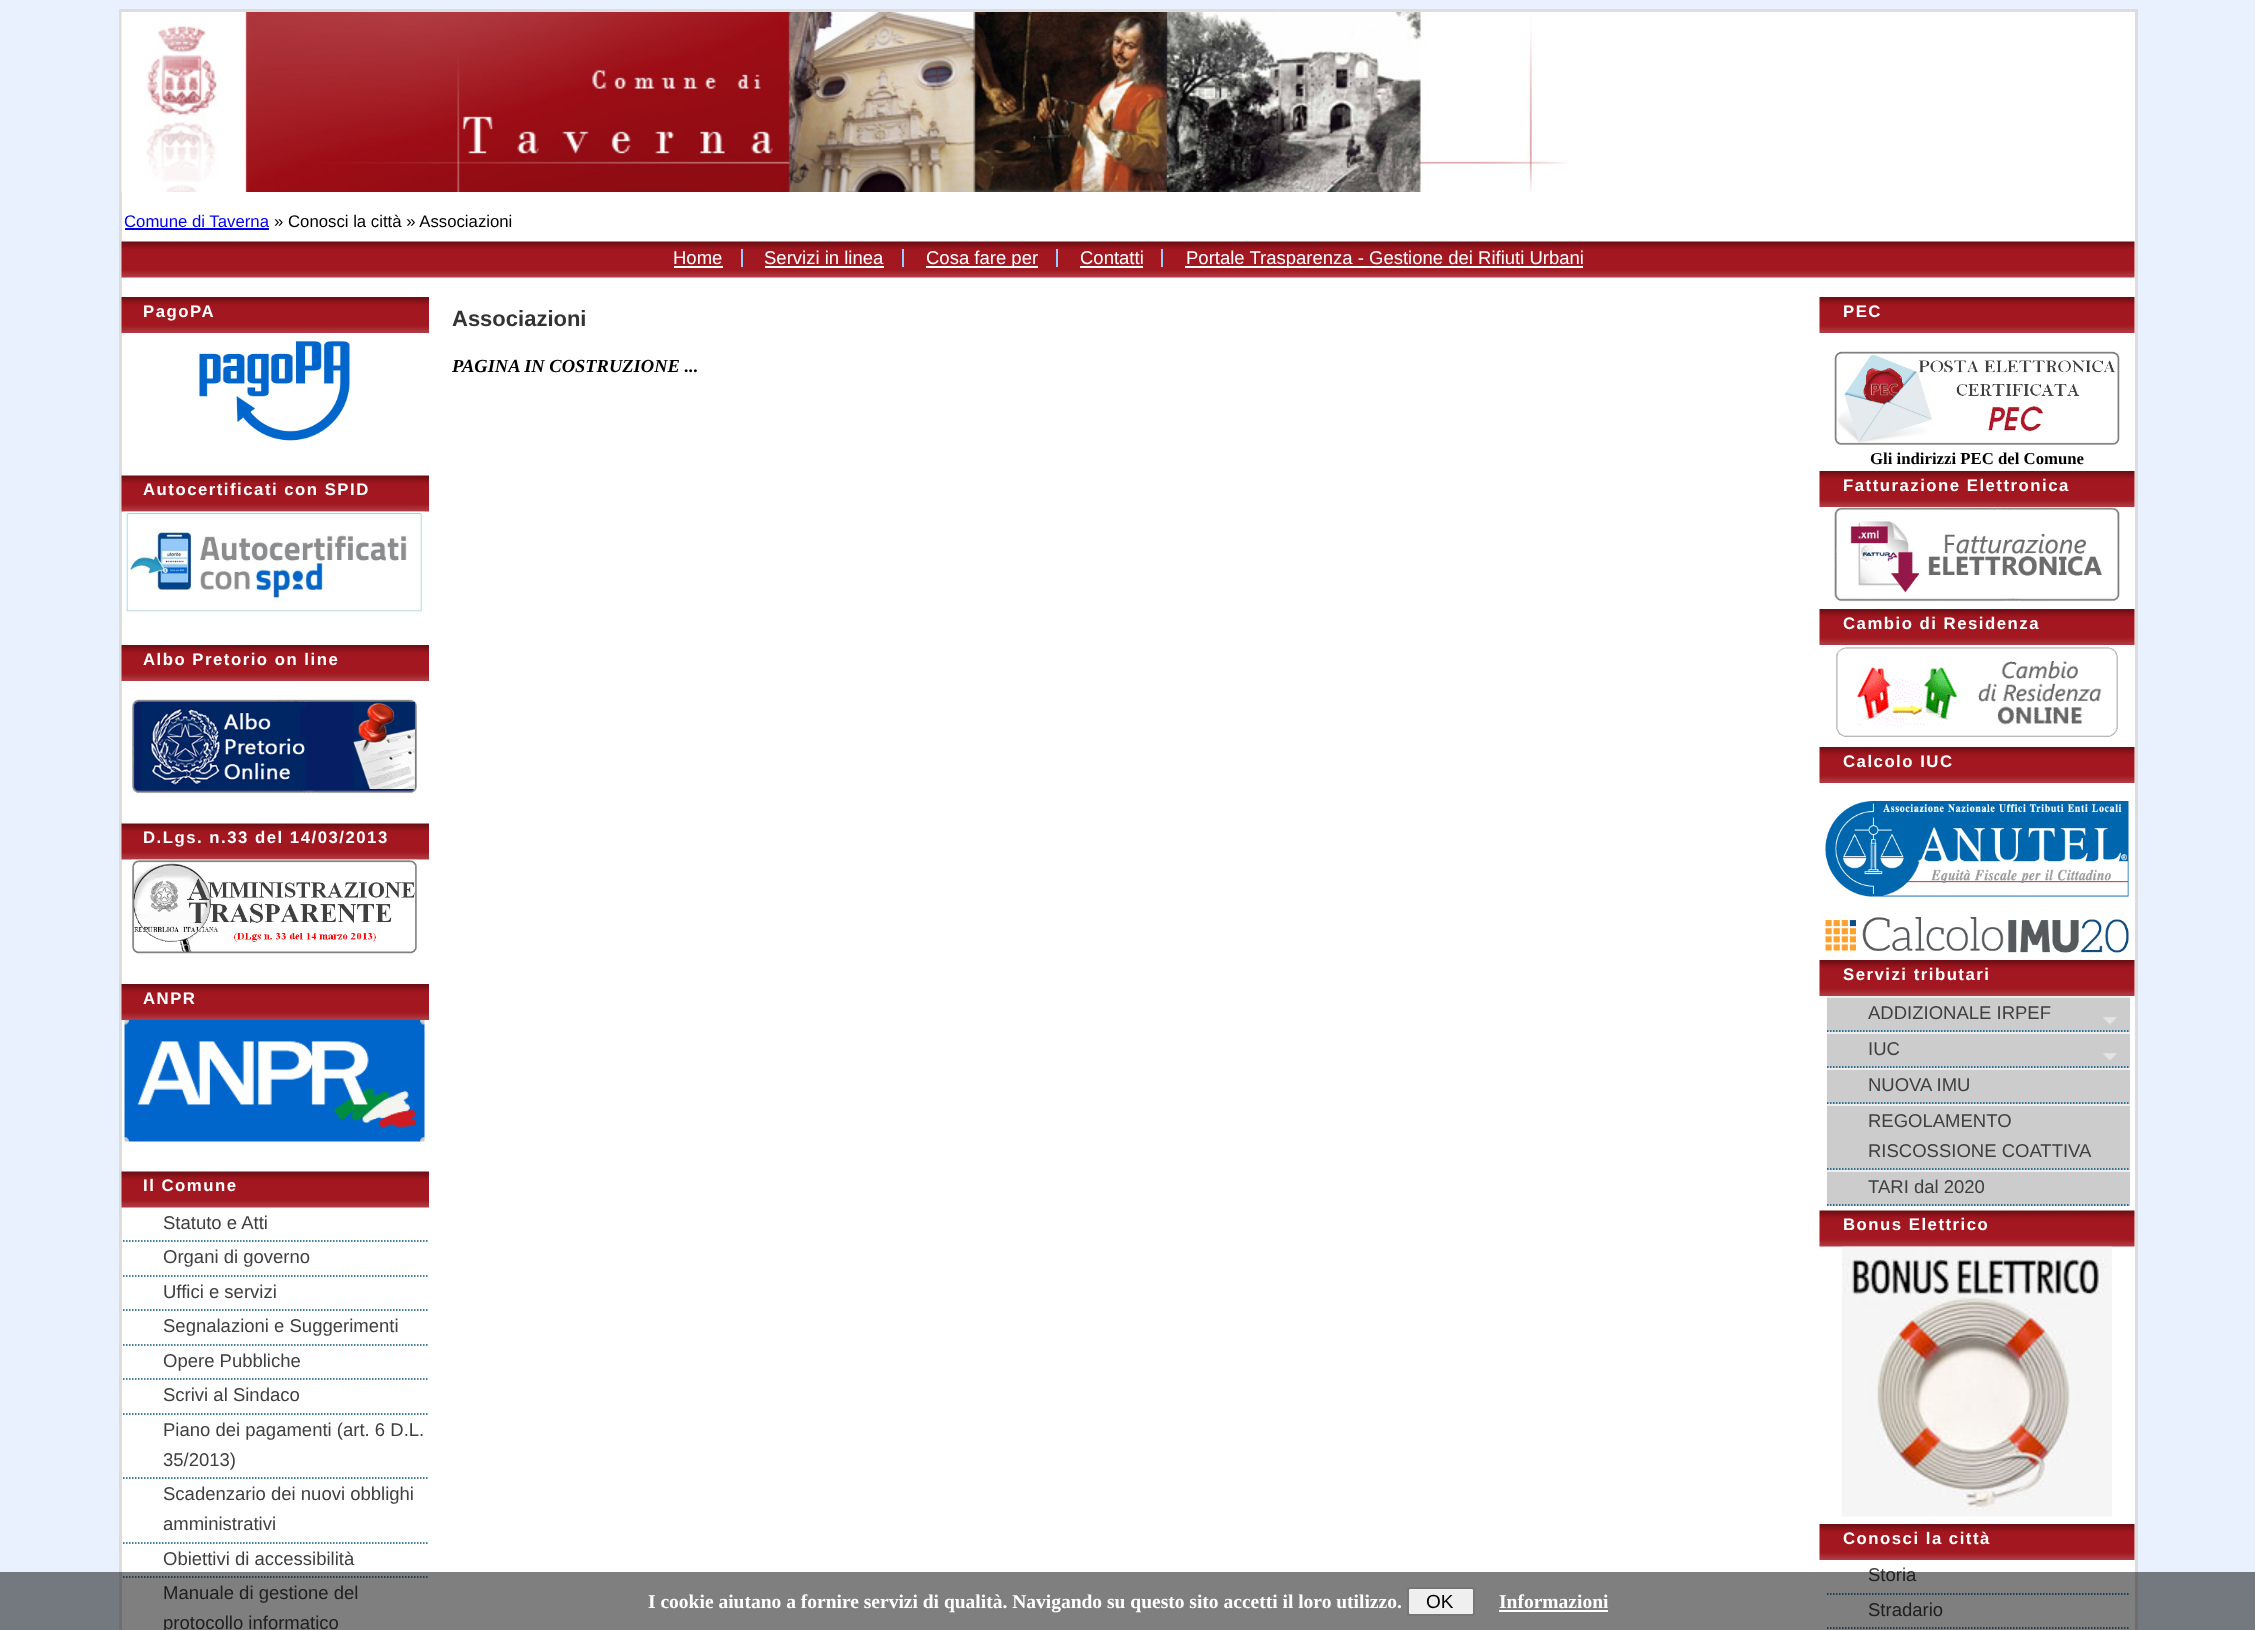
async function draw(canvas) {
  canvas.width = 2255;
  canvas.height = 1630;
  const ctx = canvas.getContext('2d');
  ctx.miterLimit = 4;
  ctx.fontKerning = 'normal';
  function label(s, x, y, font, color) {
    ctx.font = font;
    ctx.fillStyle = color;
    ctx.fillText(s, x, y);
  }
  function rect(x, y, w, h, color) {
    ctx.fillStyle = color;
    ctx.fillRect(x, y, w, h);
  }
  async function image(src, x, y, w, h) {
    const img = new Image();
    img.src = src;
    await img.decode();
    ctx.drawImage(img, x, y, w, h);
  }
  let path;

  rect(0, 0, 2255, 1630, '#e9f1ff');
  ctx.fillStyle = '#fff';
  ctx.beginPath();
  ctx.rect(120.5, 10.5, 2016, 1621);
  ctx.fill();
  ctx.strokeStyle = '#ddd';
  ctx.lineWidth = 3;
  ctx.stroke();
  await image('assets/img1.png', 121, 12, 1448, 180);
  label('Comune di Taverna', 124, 227, '16.75px Liberation Sans', '#00e');
  rect(125, 228, 144, 2, '#00e');
  label('» Conosci la città » Associazioni', 274, 227, '16.75px Liberation Sans', '#000');
  await image('assets/img2.png', 121, 241, 2014, 37);
  label('Home', 673, 264, '18.5px Liberation Sans', '#fff');
  rect(674, 266, 49, 2, '#fff');
  label('Servizi in linea', 764, 264, '18.5px Liberation Sans', '#fff');
  rect(741, 249, 2, 18, '#9cf');
  rect(765, 266, 119, 2, '#fff');
  rect(926, 266, 112, 2, '#fff');
  label('Cosa fare per', 926, 264, '18.5px Liberation Sans', '#fff');
  rect(902, 249, 2, 18, '#9cf');
  label('Contatti', 1080, 264, '18.5px Liberation Sans', '#fff');
  rect(1056, 249, 2, 18, '#9cf');
  rect(1080, 266, 63, 2, '#fff');
  rect(1185, 266, 398, 2, '#fff');
  label('Portale Trasparenza - Gestione dei Rifiuti Urbani', 1186, 264, '18.5px Liberation Sans', '#fff');
  rect(1161, 249, 2, 18, '#9cf');
  await image('assets/img3.png', 121, 297, 308, 36);
  ctx.letterSpacing = '1.5px';
  label('PagoPA', 143, 317, 'bold 16.75px Liberation Sans', '#fff');
  await image('assets/img4.png', 199, 340, 151, 101);
  await image('assets/img5.png', 121, 475, 308, 37);
  label('Autocertificati con SPID', 143, 495, 'bold 16.75px Liberation Sans', '#fff');
  await image('assets/img6.png', 124, 511, 301, 103);
  await image('assets/img3.png', 121, 645, 308, 36);
  label('Albo Pretorio on line', 143, 665, 'bold 16.75px Liberation Sans', '#fff');
  await image('assets/img7.png', 132, 699, 285, 95);
  await image('assets/img5.png', 121, 823, 308, 37);
  label('D.Lgs. n.33 del 14/03/2013', 143, 843, 'bold 16.75px Liberation Sans', '#fff');
  await image('assets/img8.png', 132, 859, 285, 95);
  await image('assets/img3.png', 121, 984, 308, 36);
  label('ANPR', 143, 1004, 'bold 16.75px Liberation Sans', '#fff');
  await image('assets/img9.png', 124, 1020, 301, 122);
  await image('assets/img5.png', 121, 1171, 308, 37);
  label('Il Comune', 143, 1191, 'bold 16.75px Liberation Sans', '#fff');
  path = new Path2D('M123 1241H427.5');
  ctx.strokeStyle = '#015488';
  ctx.lineWidth = 1.5;
  ctx.setLineDash([1.5, 1.5]);
  ctx.stroke(path);
  ctx.letterSpacing = '0px';
  label('Statuto e Atti', 163, 1229, '18.5px Liberation Sans', '#404040');
  path = new Path2D('M123 1276H427.5');
  ctx.stroke(path);
  label('Organi di governo', 163, 1263, '18.5px Liberation Sans', '#404040');
  path = new Path2D('M123 1310H427.5');
  ctx.stroke(path);
  label('Uffici e servizi', 163, 1298, '18.5px Liberation Sans', '#404040');
  path = new Path2D('M123 1345H427.5');
  ctx.stroke(path);
  label('Segnalazioni e Suggerimenti', 163, 1332, '18.5px Liberation Sans', '#404040');
  path = new Path2D('M123 1379H427.5');
  ctx.stroke(path);
  label('Opere Pubbliche', 163, 1367, '18.5px Liberation Sans', '#404040');
  path = new Path2D('M123 1414H427.5');
  ctx.stroke(path);
  label('Scrivi al Sindaco', 163, 1401, '18.5px Liberation Sans', '#404040');
  path = new Path2D('M123 1478H427.5');
  ctx.stroke(path);
  label('Piano dei pagamenti (art. 6 D.L.', 163, 1436, '18.5px Liberation Sans', '#404040');
  label('35/2013)', 163, 1466, '18.5px Liberation Sans', '#404040');
  path = new Path2D('M123 1543H427.5');
  ctx.stroke(path);
  label('Scadenzario dei nuovi obblighi', 163, 1500, '18.5px Liberation Sans', '#404040');
  label('amministrativi', 163, 1530, '18.5px Liberation Sans', '#404040');
  path = new Path2D('M123 1577H427.5');
  ctx.stroke(path);
  label('Obiettivi di accessibilità', 163, 1565, '18.5px Liberation Sans', '#404040');
  label('Manuale di gestione del', 163, 1599, '18.5px Liberation Sans', '#404040');
  label('protocollo informatico', 163, 1629, '18.5px Liberation Sans', '#404040');
  label('Associazioni', 452, 326, 'bold 22px Liberation Sans', '#333');
  label('PAGINA IN COSTRUZIONE ...', 452, 372, 'italic bold 18.5px Liberation Serif', '#000');
  await image('assets/img10.png', 1819, 297, 316, 36);
  ctx.letterSpacing = '1.5px';
  label('PEC', 1843, 317, 'bold 16.75px Liberation Sans', '#fff');
  await image('assets/img11.png', 1834, 351, 286, 94);
  ctx.letterSpacing = '0px';
  label('Gli indirizzi PEC del Comune', 1870, 464, 'bold 16.75px Liberation Serif', '#000');
  await image('assets/img10.png', 1819, 471, 316, 36);
  ctx.letterSpacing = '1.5px';
  label('Fatturazione Elettronica', 1843, 491, 'bold 16.75px Liberation Sans', '#fff');
  await image('assets/img12.png', 1834, 507, 286, 95);
  await image('assets/img10.png', 1819, 609, 316, 36);
  label('Cambio di Residenza', 1843, 629, 'bold 16.75px Liberation Sans', '#fff');
  await image('assets/img13.png', 1836, 647, 282, 90);
  await image('assets/img10.png', 1819, 747, 316, 36);
  label('Calcolo IUC', 1843, 767, 'bold 16.75px Liberation Sans', '#fff');
  await image('assets/img14.png', 1825, 801, 304, 152);
  await image('assets/img10.png', 1819, 960, 316, 36);
  label('Servizi tributari', 1843, 980, 'bold 16.75px Liberation Sans', '#fff');
  rect(1827, 998, 303, 34, '#ccc');
  rect(1827, 996, 303, 2, '#eee');
  path = new Path2D('M1827 1031H2130');
  ctx.stroke(path);
  ctx.letterSpacing = '0px';
  label('ADDIZIONALE IRPEF', 1868, 1019, '18.5px Liberation Sans', '#404040');
  await image('assets/img15.png', 2103, 1017, 14, 8);
  rect(1827, 1034, 303, 34, '#ccc');
  rect(1827, 1032, 303, 2, '#eee');
  path = new Path2D('M1827 1067H2130');
  ctx.stroke(path);
  label('IUC', 1868, 1055, '18.5px Liberation Sans', '#404040');
  await image('assets/img15.png', 2103, 1053, 14, 8);
  rect(1827, 1070, 303, 34, '#ccc');
  rect(1827, 1068, 303, 2, '#eee');
  path = new Path2D('M1827 1103H2130');
  ctx.stroke(path);
  label('NUOVA IMU', 1868, 1091, '18.5px Liberation Sans', '#404040');
  rect(1827, 1106, 303, 64, '#ccc');
  rect(1827, 1104, 303, 2, '#eee');
  path = new Path2D('M1827 1169H2130');
  ctx.stroke(path);
  label('REGOLAMENTO', 1868, 1127, '18.5px Liberation Sans', '#404040');
  label('RISCOSSIONE COATTIVA', 1868, 1157, '18.5px Liberation Sans', '#404040');
  rect(1827, 1172, 303, 34, '#ccc');
  rect(1827, 1170, 303, 2, '#eee');
  path = new Path2D('M1827 1205H2130');
  ctx.stroke(path);
  label('TARI dal 2020', 1868, 1193, '18.5px Liberation Sans', '#404040');
  await image('assets/img16.png', 1819, 1210, 316, 37);
  ctx.letterSpacing = '1.5px';
  label('Bonus Elettrico', 1843, 1230, 'bold 16.75px Liberation Sans', '#fff');
  await image('assets/img17.png', 1842, 1246, 270, 271);
  await image('assets/img10.png', 1819, 1524, 316, 36);
  label('Conosci la città', 1843, 1544, 'bold 16.75px Liberation Sans', '#fff');
  path = new Path2D('M1827 1594H2130');
  ctx.stroke(path);
  ctx.letterSpacing = '0px';
  label('Storia', 1868, 1581, '18.5px Liberation Sans', '#404040');
  path = new Path2D('M1827 1628H2130');
  ctx.stroke(path);
  label('Stradario', 1868, 1616, '18.5px Liberation Sans', '#404040');
  rect(0, 1572, 2255, 58, '#00000080');
  label('I cookie aiutano a fornire servizi di qualità. Navigando su questo sito accetti il loro utilizzo.', 648, 1608, 'bold 19.5px Liberation Serif', '#fff');
  ctx.fillStyle = '#efefef';
  ctx.beginPath();
  ctx.roundRect(1408, 1588, 66, 27, 2);
  ctx.fill();
  ctx.strokeStyle = '#767676';
  ctx.lineWidth = 2;
  ctx.setLineDash([]);
  ctx.stroke();
  label('OK', 1426, 1608, '19px Liberation Sans', '#000');
  label('Informazioni', 1499, 1608, 'bold 19.5px Liberation Serif', '#fff');
  rect(1499, 1610, 109, 2, '#fff');
}

draw(document.querySelector('canvas'));
